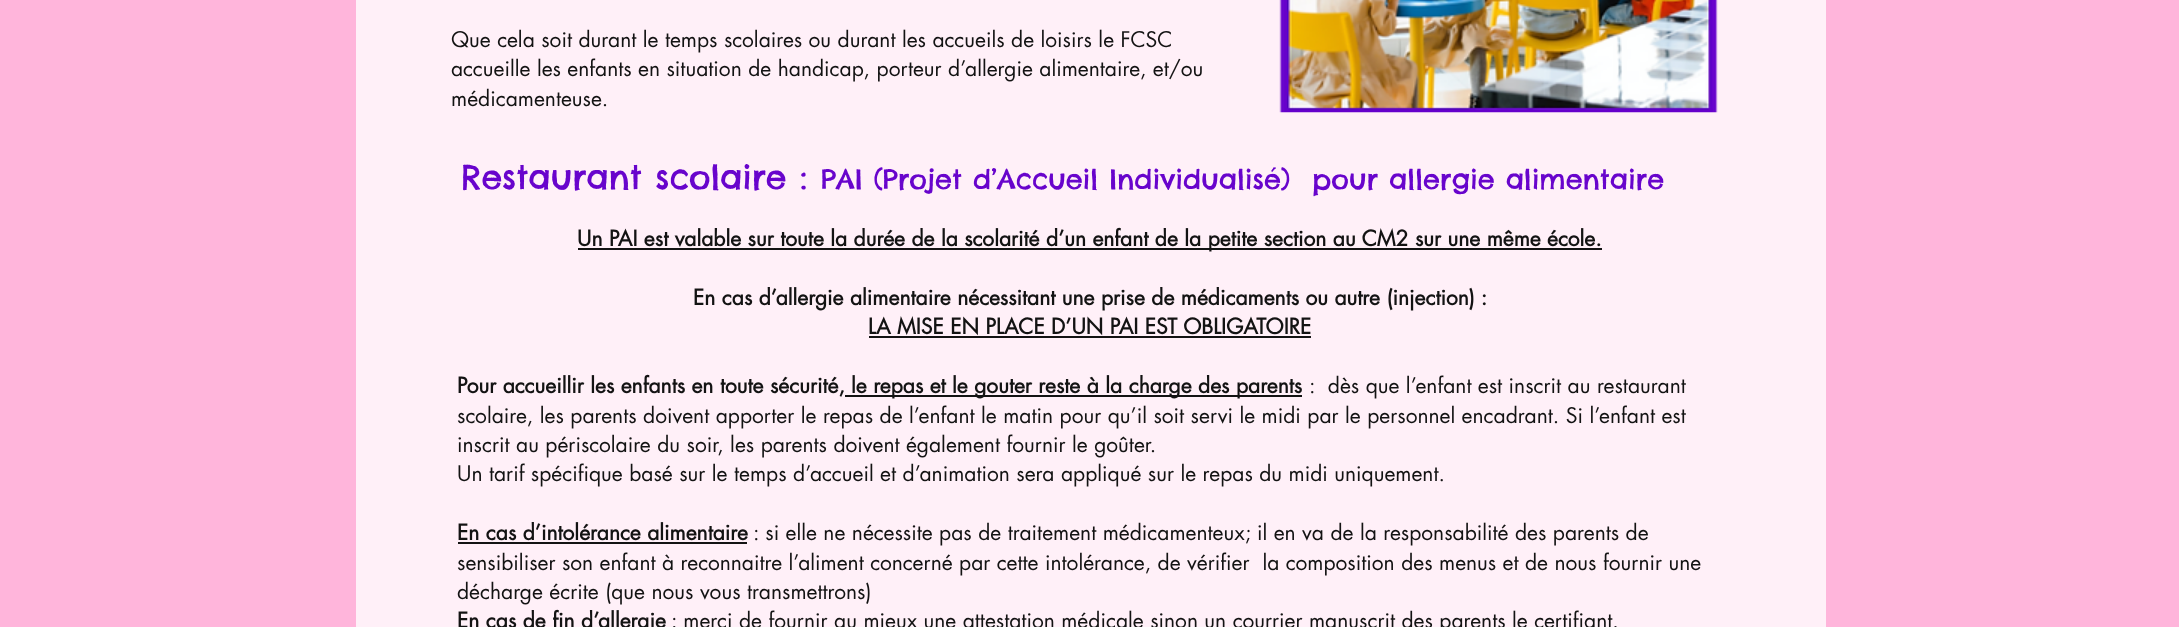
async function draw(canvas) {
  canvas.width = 2179;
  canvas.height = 627;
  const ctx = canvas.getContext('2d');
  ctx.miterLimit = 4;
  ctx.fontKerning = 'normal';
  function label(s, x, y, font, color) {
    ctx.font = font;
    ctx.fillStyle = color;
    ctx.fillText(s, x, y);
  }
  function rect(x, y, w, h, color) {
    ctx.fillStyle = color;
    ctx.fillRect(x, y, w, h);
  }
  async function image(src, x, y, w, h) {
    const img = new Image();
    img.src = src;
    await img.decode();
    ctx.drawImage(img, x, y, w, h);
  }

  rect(0, 0, 2179, 627, '#ffb5db');
  rect(356, 0, 1470, 627, '#fff0f8');
  label('Que cela soit durant le temps scolaires ou durant les accueils de loisirs le FCSC', 451, 47, '21px futura', '#131313');
  label('accueille les enfants en situation de handicap, porteur d’allergie alimentaire, et/ou', 451, 76, '21px futura', '#131313');
  label('médicamenteuse.', 451, 106, '21px futura', '#131313');
  await image('assets/img1.png', 1279, 0, 439, 113);
  label('Restaurant scolaire :', 461, 189, '33px Chelsea Market', '#6804cc');
  label('PAI (Projet d’Accueil Individualisé)  pour allergie alimentaire', 821, 189, '27px Chelsea Market', '#6804cc');
  rect(578, 248, 1024, 2, '#131313');
  label('Un PAI est valable sur toute la durée de la scolarité d’un enfant de la petite section au CM2 sur une même école.', 577, 246, 'bold 21px futura', '#131313');
  label('En cas d’allergie alimentaire nécessitant une prise de médicaments ou autre (injection) :', 693, 305, 'bold 21px futura', '#131313');
  label('LA MISE EN PLACE D’UN PAI EST OBLIGATOIRE', 868, 334, 'bold 21px futura', '#131313');
  rect(869, 336, 442, 2, '#131313');
  label('Pour accueillir les enfants en toute sécurité,', 457, 393, 'bold 21px futura', '#131313');
  rect(845, 395, 457, 2, '#131313');
  label('le repas et le gouter reste à la charge des parents', 851, 393, 'bold 21px futura', '#131313');
  label(':  dès que l’enfant est inscrit au restaurant', 1309, 393, '21px futura', '#131313');
  label('scolaire, les parents doivent apporter le repas de l’enfant le matin pour qu’il soit servi le midi par le personnel encadrant. Si l’enfant est', 457, 423, '21px futura', '#131313');
  label('inscrit au périscolaire du soir, les parents doivent également fournir le goûter.', 457, 452, '21px futura', '#131313');
  label('Un tarif spécifique basé sur le temps d’accueil et d’animation sera appliqué sur le repas du midi uniquement.', 457, 481, '21px futura', '#131313');
  label('En cas d’intolérance alimentaire', 457, 540, 'bold 21px futura', '#131313');
  rect(458, 542, 289, 2, '#131313');
  label(': si elle ne nécessite pas de traitement médicamenteux; il en va de la responsabilité des parents de', 753, 540, '21px futura', '#131313');
  label('sensibiliser son enfant à reconnaitre l’aliment concerné par cette intolérance, de vérifier  la composition des menus et de nous fournir une', 457, 570, '21px futura', '#131313');
  label('décharge écrite (que nous vous transmettrons)', 457, 599, '21px futura', '#131313');
  label('En cas de fin d’allergie', 457, 628, 'bold 21px futura', '#131313');
  label(': merci de fournir au mieux une attestation médicale sinon un courrier manuscrit des parents le certifiant.', 671, 628, '21px futura', '#131313');
}

draw(document.querySelector('canvas'));
